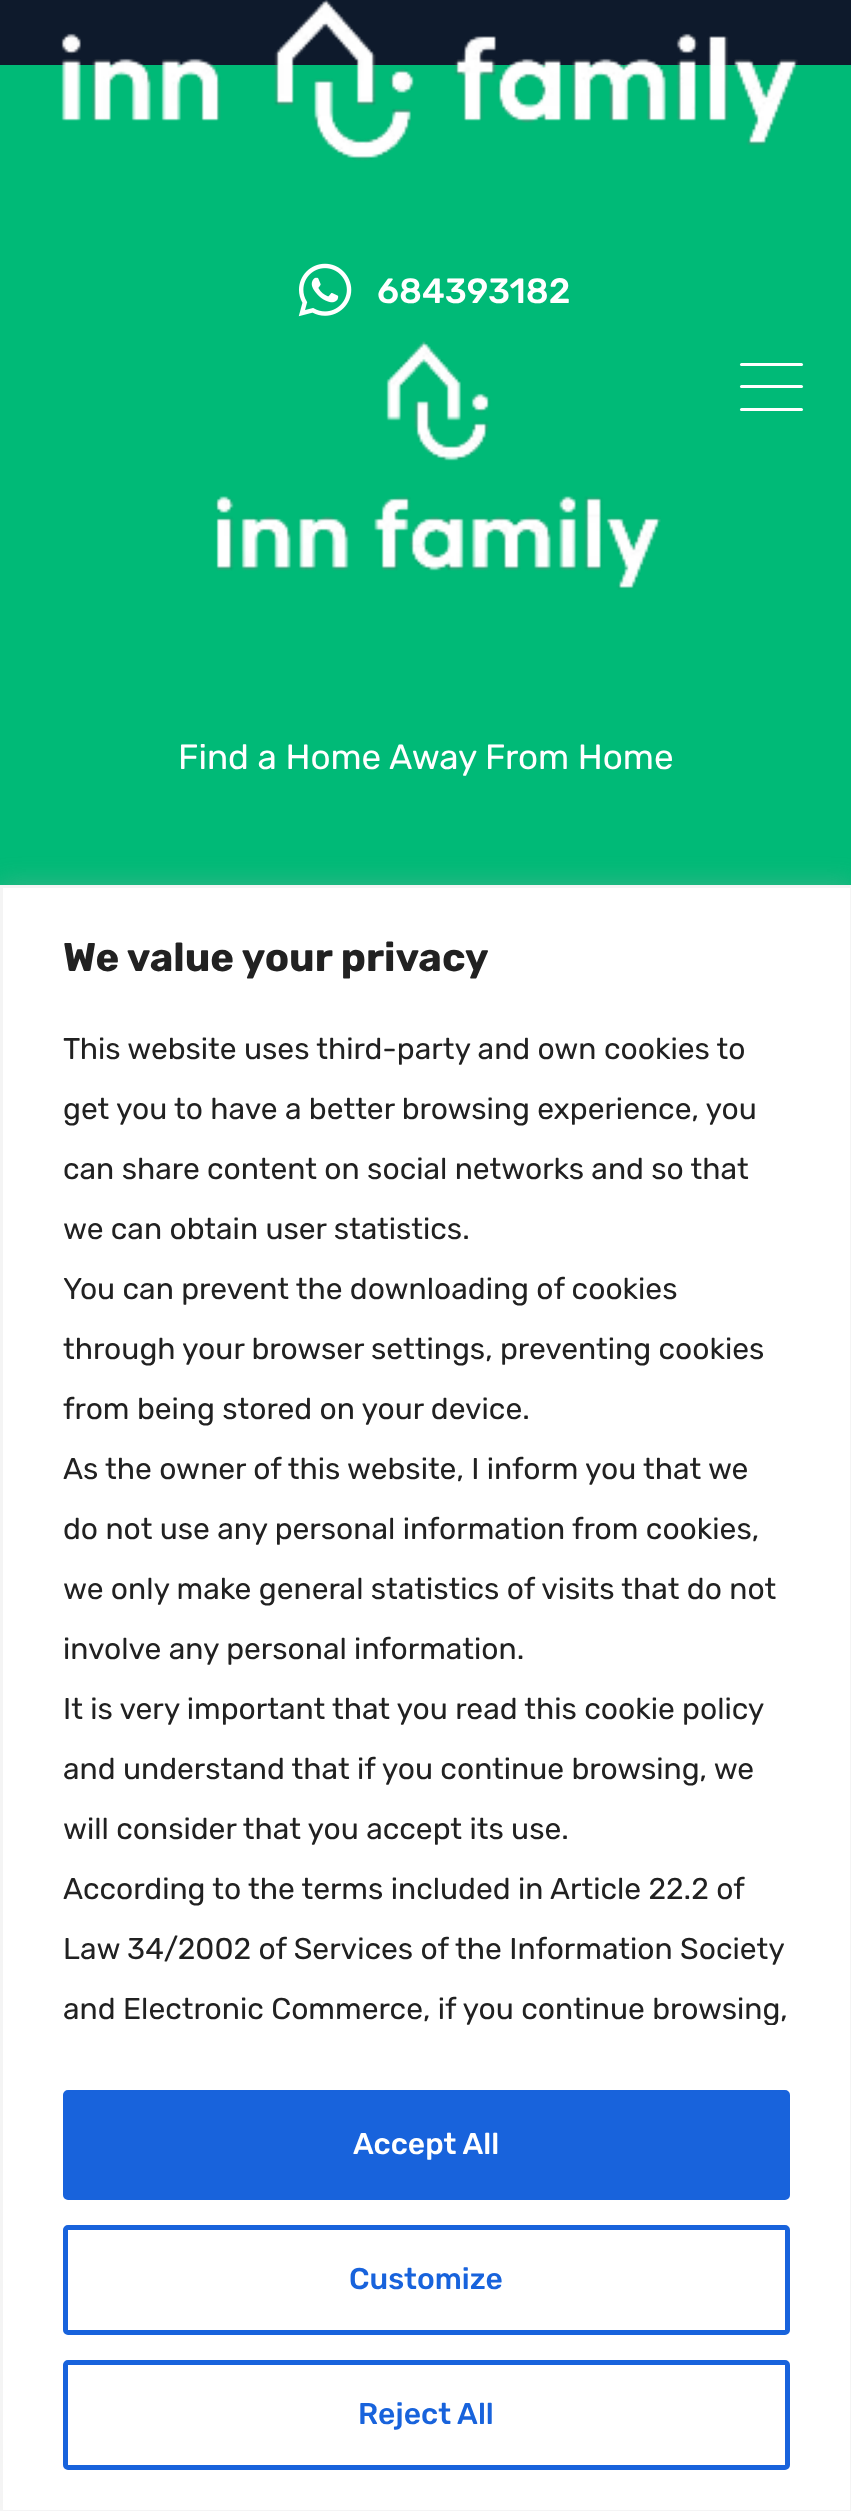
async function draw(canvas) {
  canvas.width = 851;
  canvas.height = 2511;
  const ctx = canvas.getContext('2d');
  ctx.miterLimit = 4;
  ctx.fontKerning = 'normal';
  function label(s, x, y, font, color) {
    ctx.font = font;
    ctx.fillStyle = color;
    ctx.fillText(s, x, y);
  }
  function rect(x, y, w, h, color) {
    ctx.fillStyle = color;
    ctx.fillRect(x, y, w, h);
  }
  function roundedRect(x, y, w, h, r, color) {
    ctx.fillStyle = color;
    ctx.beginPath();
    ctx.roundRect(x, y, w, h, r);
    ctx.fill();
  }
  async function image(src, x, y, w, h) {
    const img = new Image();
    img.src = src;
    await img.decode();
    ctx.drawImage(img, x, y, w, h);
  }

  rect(0, 0, 851, 2511, '#0e1a2c');
  rect(0, 65, 851, 820, '#00ba77');
  await image('assets/img1.png', 61, 0, 737, 161);
  await image('assets/img2.png', 298, 263, 54, 54);
  label('684393182', 377, 303, '500 35px Rubik', '#fff');
  roundedRect(740, 385, 63, 3, 1.5, '#fff');
  roundedRect(740, 363, 63, 3, 1.5, '#fff');
  roundedRect(740, 408, 63, 3, 1.5, '#fff');
  await image('assets/img3.png', 214, 341, 447, 249);
  label('Find a Home Away From Home', 178, 769, '35px Rubik', '#fff');
  ctx.fillStyle = '#acabab4d';
  ctx.filter = 'blur(12.5px)';
  ctx.beginPath();
  ctx.rect(0, 883, 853, 1627);
  ctx.fill();
  ctx.filter = 'none';
  ctx.fillStyle = '#fff';
  ctx.beginPath();
  ctx.rect(1.5, 886.5, 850, 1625);
  ctx.fill();
  ctx.strokeStyle = '#f4f4f4';
  ctx.lineWidth = 3;
  ctx.stroke();
  label('We value your privacy', 63, 971, 'bold 40px Rubik', '#212121');
  label('This website uses third-party and own cookies to', 63, 1059, '30px Rubik', '#212121');
  label('get you to have a better browsing experience, you', 63, 1119, '30px Rubik', '#212121');
  label('can share content on social networks and so that', 63, 1179, '30px Rubik', '#212121');
  label('we can obtain user statistics.', 63, 1239, '30px Rubik', '#212121');
  label('You can prevent the downloading of cookies', 63, 1299, '30px Rubik', '#212121');
  label('through your browser settings, preventing cookies', 63, 1359, '30px Rubik', '#212121');
  label('from being stored on your device.', 63, 1419, '30px Rubik', '#212121');
  label('As the owner of this website, I inform you that we', 63, 1479, '30px Rubik', '#212121');
  label('do not use any personal information from cookies,', 63, 1539, '30px Rubik', '#212121');
  label('we only make general statistics of visits that do not', 63, 1599, '30px Rubik', '#212121');
  label('involve any personal information.', 63, 1659, '30px Rubik', '#212121');
  label('It is very important that you read this cookie policy', 63, 1719, '30px Rubik', '#212121');
  label('and understand that if you continue browsing, we', 63, 1779, '30px Rubik', '#212121');
  label('will consider that you accept its use.', 63, 1839, '30px Rubik', '#212121');
  label('According to the terms included in Article 22.2 of', 63, 1899, '30px Rubik', '#212121');
  label('Law 34/2002 of Services of the Information Society', 63, 1959, '30px Rubik', '#212121');
  ctx.save();
  ctx.beginPath();
  ctx.rect(3, 1020, 847, 1005);
  ctx.clip();
  label('and Electronic Commerce, if you continue browsing,', 63, 2019, '30px Rubik', '#212121');
  ctx.restore();
  ctx.fillStyle = '#1863dc';
  ctx.beginPath();
  ctx.roundRect(65.5, 2092.5, 722, 105, 2.5);
  ctx.fill();
  ctx.strokeStyle = '#1863dc';
  ctx.lineWidth = 5;
  ctx.stroke();
  label('Accept All', 353, 2154, '500 30px Rubik', '#fff');
  ctx.beginPath();
  ctx.roundRect(65.5, 2227.5, 722, 105, 2.5);
  ctx.stroke();
  label('Customize', 349, 2289, '500 30px Rubik', '#1863dc');
  ctx.beginPath();
  ctx.roundRect(65.5, 2362.5, 722, 105, 2.5);
  ctx.stroke();
  label('Reject All', 358, 2424, '500 30px Rubik', '#1863dc');
}

draw(document.querySelector('canvas'));
